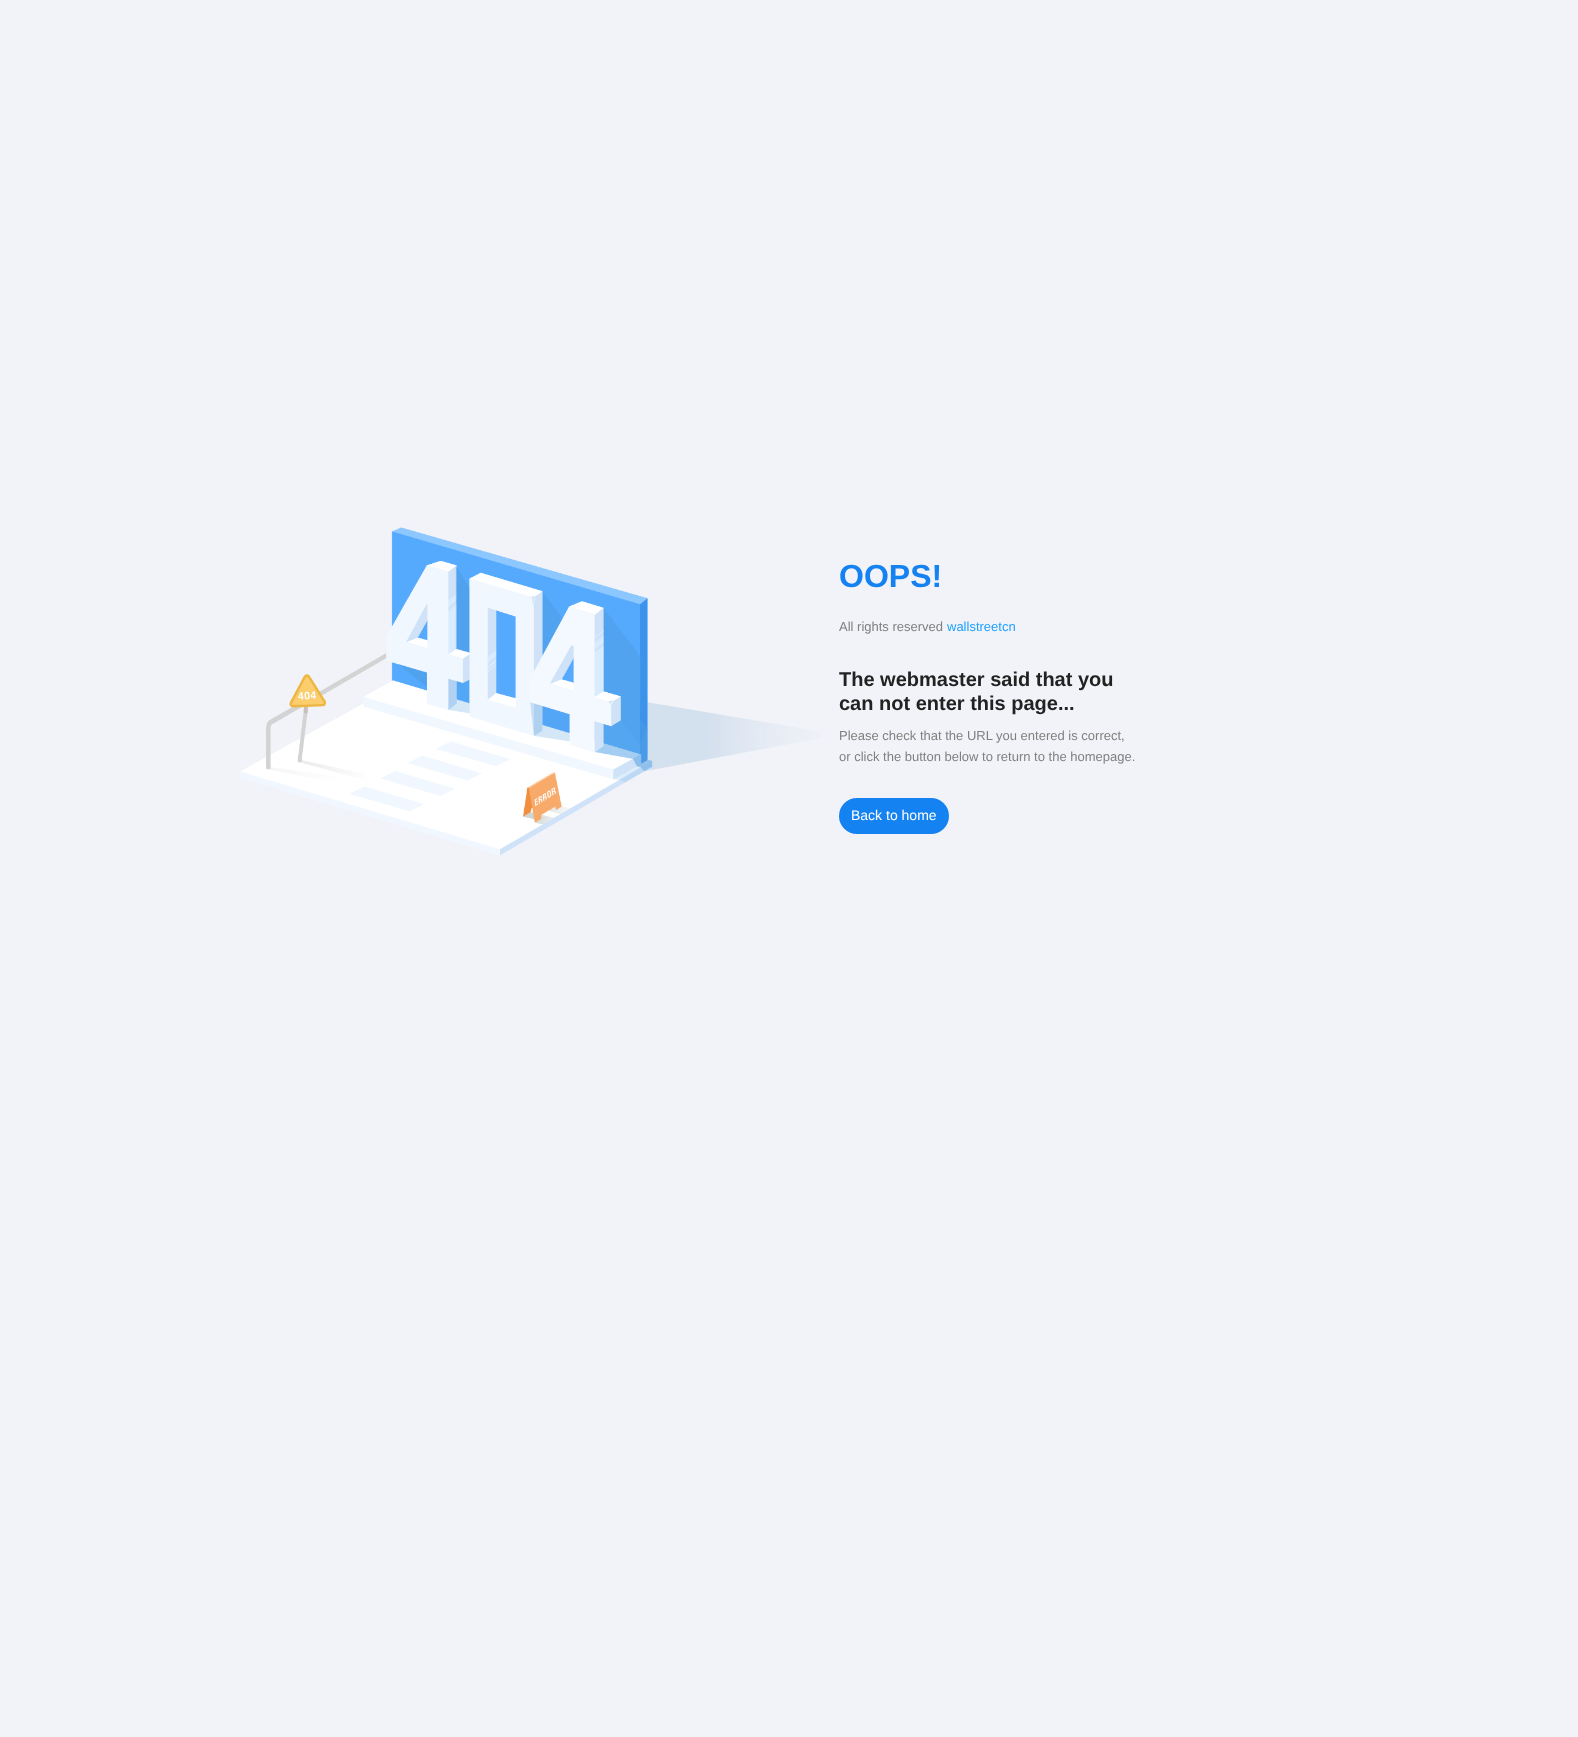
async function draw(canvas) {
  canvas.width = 1578;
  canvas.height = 1737;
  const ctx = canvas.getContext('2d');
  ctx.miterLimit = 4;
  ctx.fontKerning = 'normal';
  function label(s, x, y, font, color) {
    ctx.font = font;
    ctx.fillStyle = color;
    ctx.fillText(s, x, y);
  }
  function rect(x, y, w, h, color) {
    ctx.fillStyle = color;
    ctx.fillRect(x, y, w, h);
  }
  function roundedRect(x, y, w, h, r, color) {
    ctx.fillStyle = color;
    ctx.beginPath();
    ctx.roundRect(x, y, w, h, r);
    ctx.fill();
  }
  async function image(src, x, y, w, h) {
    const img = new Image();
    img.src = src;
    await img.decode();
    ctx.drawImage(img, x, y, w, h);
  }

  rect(0, 0, 1578, 1737, '#f2f3f8');
  await image('assets/img1.png', 240, 527, 582, 329);
  label('OOPS!', 839, 587, 'bold 32px Liberation Sans', '#1482f0');
  label('All rights reserved', 839, 631, '13px Liberation Sans', '#808080');
  label('wallstreetcn', 947, 631, '13px Liberation Sans', '#20a0ff');
  label('The webmaster said that you', 839, 686, 'bold 20px Liberation Sans', '#222');
  label('can not enter this page...', 839, 710, 'bold 20px Liberation Sans', '#222');
  label('Please check that the URL you entered is correct,', 839, 740, '13px Liberation Sans', '#808080');
  label('or click the button below to return to the homepage.', 839, 761, '13px Liberation Sans', '#808080');
  roundedRect(839, 798, 110, 36, 18, '#1482f0');
  label('Back to home', 851, 820, '14px Liberation Sans', '#fff');
}

draw(document.querySelector('canvas'));
